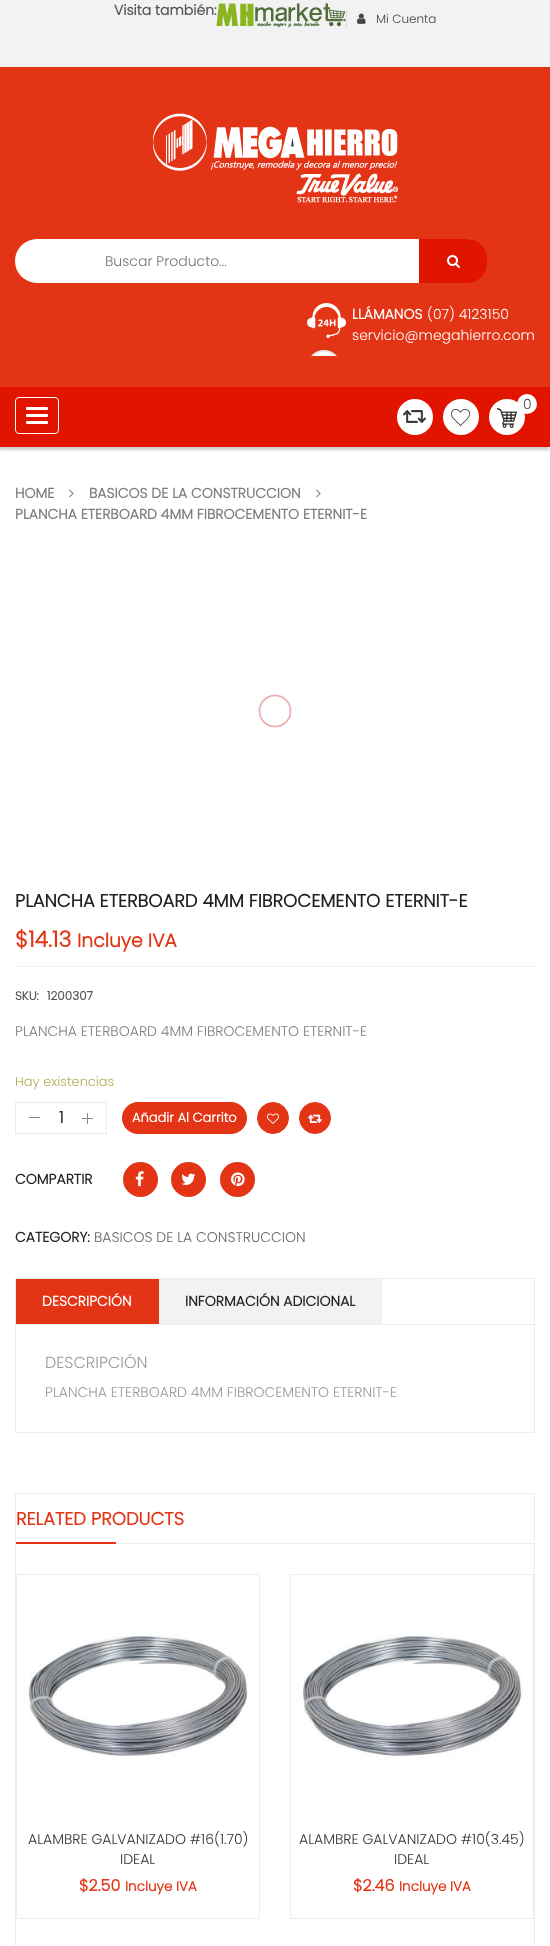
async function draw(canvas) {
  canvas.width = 550;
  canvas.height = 1946;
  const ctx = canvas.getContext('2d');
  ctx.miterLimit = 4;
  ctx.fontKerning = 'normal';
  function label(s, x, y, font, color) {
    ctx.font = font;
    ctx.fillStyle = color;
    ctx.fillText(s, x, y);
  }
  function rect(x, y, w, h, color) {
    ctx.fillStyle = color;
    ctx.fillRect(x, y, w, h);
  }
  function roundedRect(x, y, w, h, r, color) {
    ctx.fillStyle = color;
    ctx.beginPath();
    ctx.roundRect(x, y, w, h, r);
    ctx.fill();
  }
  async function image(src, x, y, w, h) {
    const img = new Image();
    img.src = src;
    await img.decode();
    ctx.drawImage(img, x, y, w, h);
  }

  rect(0, 0, 550, 1946, '#fff');
  rect(0, 0, 550, 67, '#f2f2f2');
  label('Visita también:', 114, 15, 'bold 14px Poppins', '#555');
  await image('assets/img1.png', 216, 3, 130, 25);
  rect(346, 10, 1, 18, '#ddd');
  await image('assets/img2.png', 357, 13, 9, 11);
  label('Mi Cuenta', 376, 23, '300 12px Poppins', '#464646');
  rect(0, 67, 550, 320, '#e43416');
  await image('assets/img3.png', 153, 113, 245, 90);
  roundedRect(15, 239, 470, 44, 22, '#fff');
  roundedRect(35, 239, 450, 44, 20, '#fff');
  label('Buscar Producto...', 105, 266, '300 14px Poppins', '#757575');
  ctx.fillStyle = '#e11400';
  ctx.beginPath();
  ctx.roundRect(419, 239, 68, 44, [0, 20, 20, 0]);
  ctx.fill();
  await image('assets/img4.png', 447, 255, 13, 13);
  await image('assets/img5.png', 307, 303, 39, 53);
  label('LLÁMANOS', 352, 319, 'bold 14px Poppins', '#fff');
  label('(07) 4123150', 427, 319, '300 14px Poppins', '#fff');
  label('servicio@megahierro.com', 352, 340, '300 14px Poppins', '#fff');
  ctx.fillStyle = '#00000033';
  ctx.filter = 'blur(1.5px)';
  ctx.beginPath();
  ctx.rect(-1, 390, 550, 60);
  ctx.fill();
  ctx.filter = 'none';
  rect(0, 387, 550, 60, '#e11400');
  ctx.beginPath();
  ctx.roundRect(15.5, 397.5, 43, 36, 3.5);
  ctx.strokeStyle = '#fff';
  ctx.stroke();
  roundedRect(26, 407, 22, 3, 1, '#fff');
  roundedRect(26, 414, 22, 3, 1, '#fff');
  roundedRect(26, 421, 22, 3, 1, '#fff');
  ctx.beginPath();
  ctx.arc(415, 417, 18, 0, 2 * Math.PI);
  ctx.fill();
  await image('assets/img6.png', 403, 410, 23, 13);
  ctx.beginPath();
  ctx.arc(461, 417, 18, 0, 2 * Math.PI);
  ctx.fill();
  await image('assets/img7.png', 451, 409, 19, 17);
  ctx.beginPath();
  ctx.arc(507, 417, 18, 0, 2 * Math.PI);
  ctx.fill();
  await image('assets/img8.png', 497, 408, 20, 20);
  ctx.beginPath();
  ctx.arc(527, 404, 10, 0, 2 * Math.PI);
  ctx.fill();
  label('0', 523, 409, '300 14px Poppins', '#464646');
  label('HOME', 15, 498, 'bold 14px Poppins', '#7d7d7d');
  await image('assets/img9.png', 69, 489, 5, 9);
  label('BASICOS DE LA CONSTRUCCION', 89, 498, 'bold 14px Poppins', '#7d7d7d');
  await image('assets/img9.png', 316, 489, 5, 9);
  label('PLANCHA ETERBOARD 4MM FIBROCEMENTO ETERNIT-E', 15, 519, 'bold 14px Poppins', '#7d7d7d');
  await image('assets/img10.png', 258, 694, 34, 34);
  label('PLANCHA ETERBOARD 4MM FIBROCEMENTO ETERNIT-E', 15, 907, 'bold 18px Poppins', '#222');
  label('$14.13', 15, 947, 'bold 22px Poppins', '#e43416');
  label('Incluye IVA', 77, 947, 'bold 18.75px Poppins', '#e43416');
  rect(15, 966, 520, 1, '#f0f0ed');
  label('SKU:', 15, 1000, 'bold 12px Poppins', '#555');
  label('1200307', 47, 1000, 'bold 12px Poppins', '#555');
  label('PLANCHA ETERBOARD 4MM FIBROCEMENTO ETERNIT-E', 15, 1036, '300 14px Poppins', '#7d7d7d');
  label('Hay existencias', 15, 1086, '300 13px Poppins', '#b3af54');
  ctx.strokeStyle = '#ebebeb';
  ctx.strokeRect(15.5, 1102.5, 91, 31);
  rect(29, 1117, 11, 1, '#898989');
  label('1', 59, 1123, 'bold 16px Poppins', '#323232');
  await image('assets/img11.png', 82, 1113, 11, 11);
  roundedRect(122, 1102, 125, 32, 16, '#e43416');
  label('Añadir Al Carrito', 132, 1122, 'bold 13px Poppins', '#fff');
  ctx.fillStyle = '#e43416';
  ctx.beginPath();
  ctx.arc(273, 1118, 15.5, 0, 2 * Math.PI);
  ctx.fill();
  ctx.strokeStyle = '#e43416';
  ctx.stroke();
  await image('assets/img12.png', 267, 1113, 12, 11);
  ctx.beginPath();
  ctx.arc(315, 1118, 15.5, 0, 2 * Math.PI);
  ctx.fill();
  ctx.stroke();
  await image('assets/img13.png', 308, 1114, 14, 9);
  label('COMPARTIR', 15, 1184, 'bold 14px Poppins', '#222');
  ctx.fillStyle = '#e43416';
  ctx.beginPath();
  ctx.arc(140.5, 1179.5, 17.5, 0, 2 * Math.PI);
  ctx.fill();
  await image('assets/img14.png', 135, 1171, 9, 16);
  ctx.beginPath();
  ctx.arc(188.5, 1179.5, 17.5, 0, 2 * Math.PI);
  ctx.fill();
  await image('assets/img15.png', 181, 1173, 15, 12);
  ctx.beginPath();
  ctx.arc(237.5, 1179.5, 17.5, 0, 2 * Math.PI);
  ctx.fill();
  await image('assets/img16.png', 231, 1172, 14, 15);
  label('CATEGORY:', 15, 1242, 'bold 14px Poppins', '#222');
  label('BASICOS DE LA CONSTRUCCION', 94, 1242, '300 14px Poppins', '#666');
  ctx.strokeStyle = '#ededed';
  ctx.strokeRect(15.5, 1278.5, 519, 154);
  rect(16, 1324, 518, 1, '#ededed');
  rect(16, 1279, 143, 45, '#e43416');
  label('DESCRIPCIÓN', 42, 1306, 'bold 14px Poppins', '#fff');
  rect(159, 1279, 222, 45, '#f2f2f2');
  rect(381, 1279, 1, 45, '#ededed');
  label('INFORMACIÓN ADICIONAL', 185, 1306, 'bold 14px Poppins', '#222');
  label('DESCRIPCIÓN', 45, 1368, '300 16px Poppins', '#999');
  label('PLANCHA ETERBOARD 4MM FIBROCEMENTO ETERNIT-E', 45, 1397, '300 14px Poppins', '#999');
  ctx.strokeRect(15.5, 1493.5, 519, 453);
  rect(116, 1543, 418, 1, '#ededed');
  label('RELATED PRODUCTS', 16, 1525, 'bold 18px Poppins', '#e43416');
  rect(16, 1542, 100, 2, '#e43416');
  ctx.strokeRect(16.5, 1574.5, 243, 344);
  await image('assets/img17.png', 24, 1633, 225, 123);
  label('ALAMBRE GALVANIZADO #16(1.70)', 28, 1844, '300 14px Poppins', '#323232');
  label('IDEAL', 120, 1864, '300 14px Poppins', '#323232');
  label('$2.50', 79, 1891, 'bold 16px Poppins', '#e43416');
  label('Incluye IVA', 125, 1891, 'bold 13.5px Poppins', '#e43416');
  ctx.strokeRect(290.5, 1574.5, 243, 344);
  await image('assets/img17.png', 298, 1633, 225, 123);
  label('ALAMBRE GALVANIZADO #10(3.45)', 299, 1844, '300 14px Poppins', '#323232');
  label('IDEAL', 394, 1864, '300 14px Poppins', '#323232');
  label('$2.46', 353, 1891, 'bold 16px Poppins', '#e43416');
  label('Incluye IVA', 399, 1891, 'bold 13.5px Poppins', '#e43416');
}

draw(document.querySelector('canvas'));
